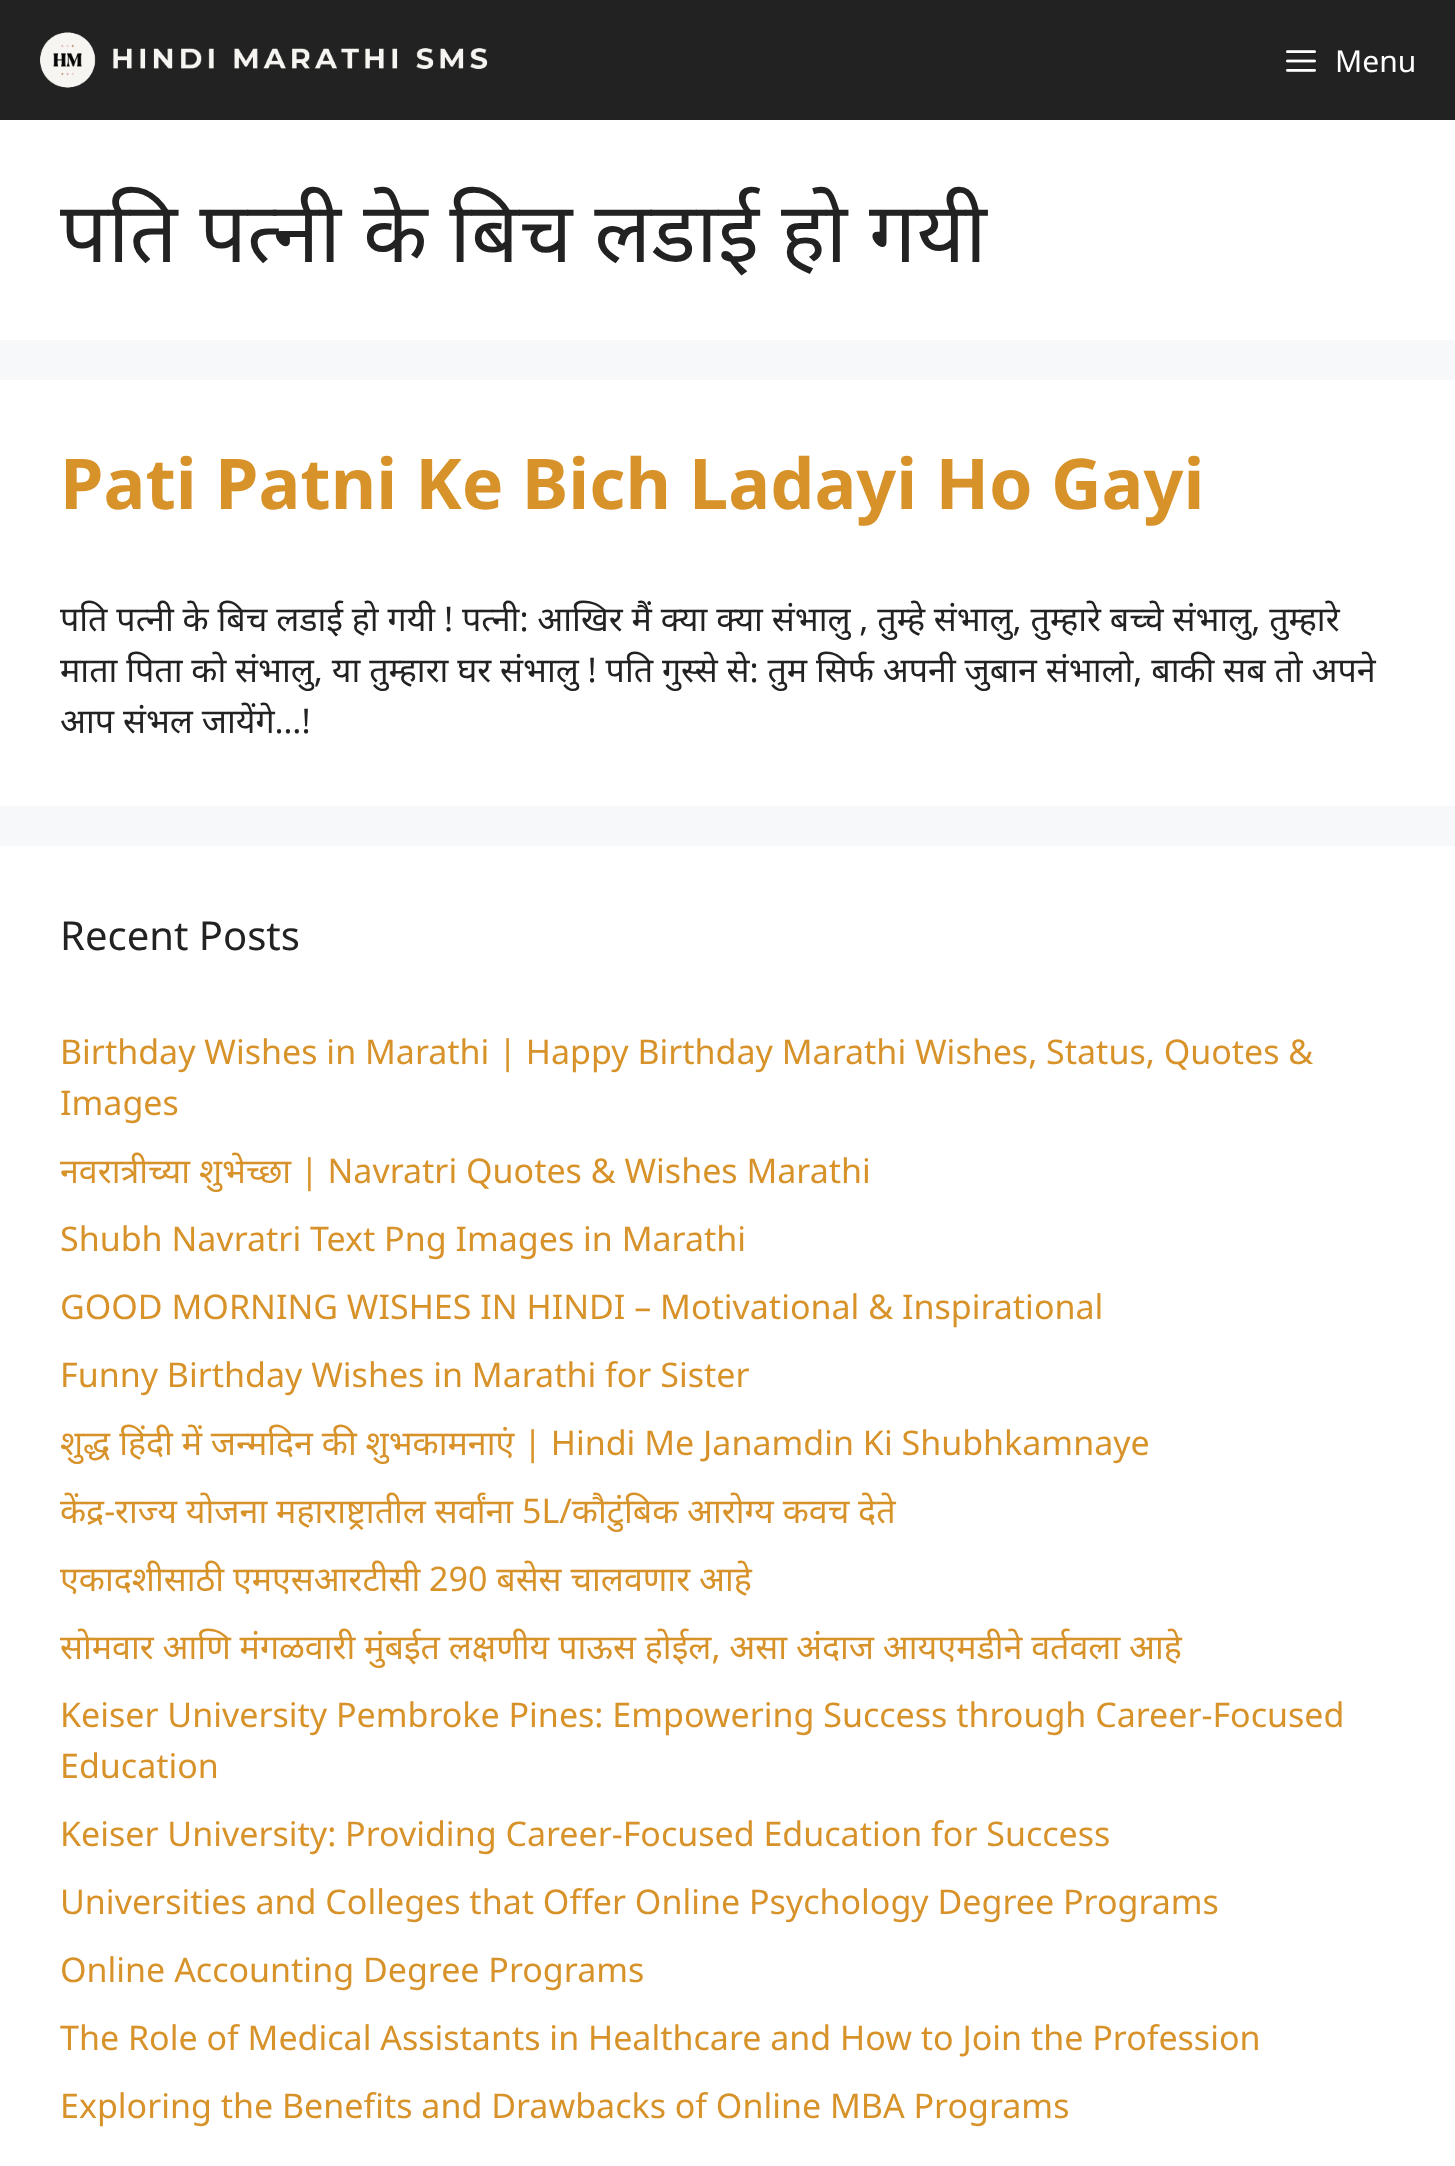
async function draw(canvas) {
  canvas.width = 1455;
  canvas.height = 2166;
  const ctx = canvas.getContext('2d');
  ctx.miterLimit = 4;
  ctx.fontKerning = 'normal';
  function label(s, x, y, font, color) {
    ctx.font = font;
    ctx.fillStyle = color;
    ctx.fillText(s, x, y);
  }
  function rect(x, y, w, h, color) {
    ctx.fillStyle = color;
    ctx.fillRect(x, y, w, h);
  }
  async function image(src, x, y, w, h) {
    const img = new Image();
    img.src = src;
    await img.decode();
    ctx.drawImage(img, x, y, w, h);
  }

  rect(0, 0, 1455, 2166, '#f7f8f9');
  rect(0, 0, 1455, 120, '#222');
  await image('assets/img1.png', 40, 32, 448, 56);
  await image('assets/img2.png', 1286, 50, 30, 22);
  label('Menu', 1335, 72, '30px Noto Sans', '#fff');
  rect(0, 120, 1455, 220, '#fff');
  label('पति पत्नी के बिच लडाई हो गयी', 60, 262, '84px Noto Sans', '#222');
  rect(0, 380, 1455, 426, '#fff');
  label('Pati Patni Ke Bich Ladayi Ho Gayi', 60, 509, 'bold 70px Noto Sans', '#d7922a');
  label('पति पत्नी के बिच लडाई हो गयी ! पत्नी: आखिर मैं क्या क्या संभालु , तुम्हे संभालु, तुम्हारे बच्चे संभालु, तुम्हारे', 60, 631, '34px Noto Sans', '#222');
  label('माता पिता को संभालु, या तुम्हारा घर संभालु ! पति गुस्से से: तुम सिर्फ अपनी जुबान संभालो, बाकी सब तो अपने', 60, 682, '34px Noto Sans', '#222');
  label('आप संभल जायेंगे…!', 60, 733, '34px Noto Sans', '#222');
  rect(0, 846, 1455, 1320, '#fff');
  label('Recent Posts', 60, 950, '40px Noto Sans', '#222');
  label('Birthday Wishes in Marathi | Happy Birthday Marathi Wishes, Status, Quotes &', 60, 1064, '34px Noto Sans', '#d7922a');
  label('Images', 60, 1115, '34px Noto Sans', '#d7922a');
  label('नवरात्रीच्या शुभेच्छा | Navratri Quotes & Wishes Marathi', 60, 1183, '34px Noto Sans', '#d7922a');
  label('Shubh Navratri Text Png Images in Marathi', 60, 1251, '34px Noto Sans', '#d7922a');
  label('GOOD MORNING WISHES IN HINDI – Motivational & Inspirational', 60, 1319, '34px Noto Sans', '#d7922a');
  label('Funny Birthday Wishes in Marathi for Sister', 60, 1387, '34px Noto Sans', '#d7922a');
  label('शुद्ध हिंदी में जन्मदिन की शुभकामनाएं | Hindi Me Janamdin Ki Shubhkamnaye', 60, 1455, '34px Noto Sans', '#d7922a');
  label('केंद्र-राज्य योजना महाराष्ट्रातील सर्वांना 5L/कौटुंबिक आरोग्य कवच देते', 60, 1523, '34px Noto Sans', '#d7922a');
  label('एकादशीसाठी एमएसआरटीसी 290 बसेस चालवणार आहे', 60, 1591, '34px Noto Sans', '#d7922a');
  label('सोमवार आणि मंगळवारी मुंबईत लक्षणीय पाऊस होईल, असा अंदाज आयएमडीने वर्तवला आहे', 60, 1659, '34px Noto Sans', '#d7922a');
  label('Keiser University Pembroke Pines: Empowering Success through Career-Focused', 60, 1727, '34px Noto Sans', '#d7922a');
  label('Education', 60, 1778, '34px Noto Sans', '#d7922a');
  label('Keiser University: Providing Career-Focused Education for Success', 60, 1846, '34px Noto Sans', '#d7922a');
  label('Universities and Colleges that Offer Online Psychology Degree Programs', 60, 1914, '34px Noto Sans', '#d7922a');
  label('Online Accounting Degree Programs', 60, 1982, '34px Noto Sans', '#d7922a');
  label('The Role of Medical Assistants in Healthcare and How to Join the Profession', 60, 2050, '34px Noto Sans', '#d7922a');
  label('Exploring the Benefits and Drawbacks of Online MBA Programs', 60, 2118, '34px Noto Sans', '#d7922a');
}

draw(document.querySelector('canvas'));
